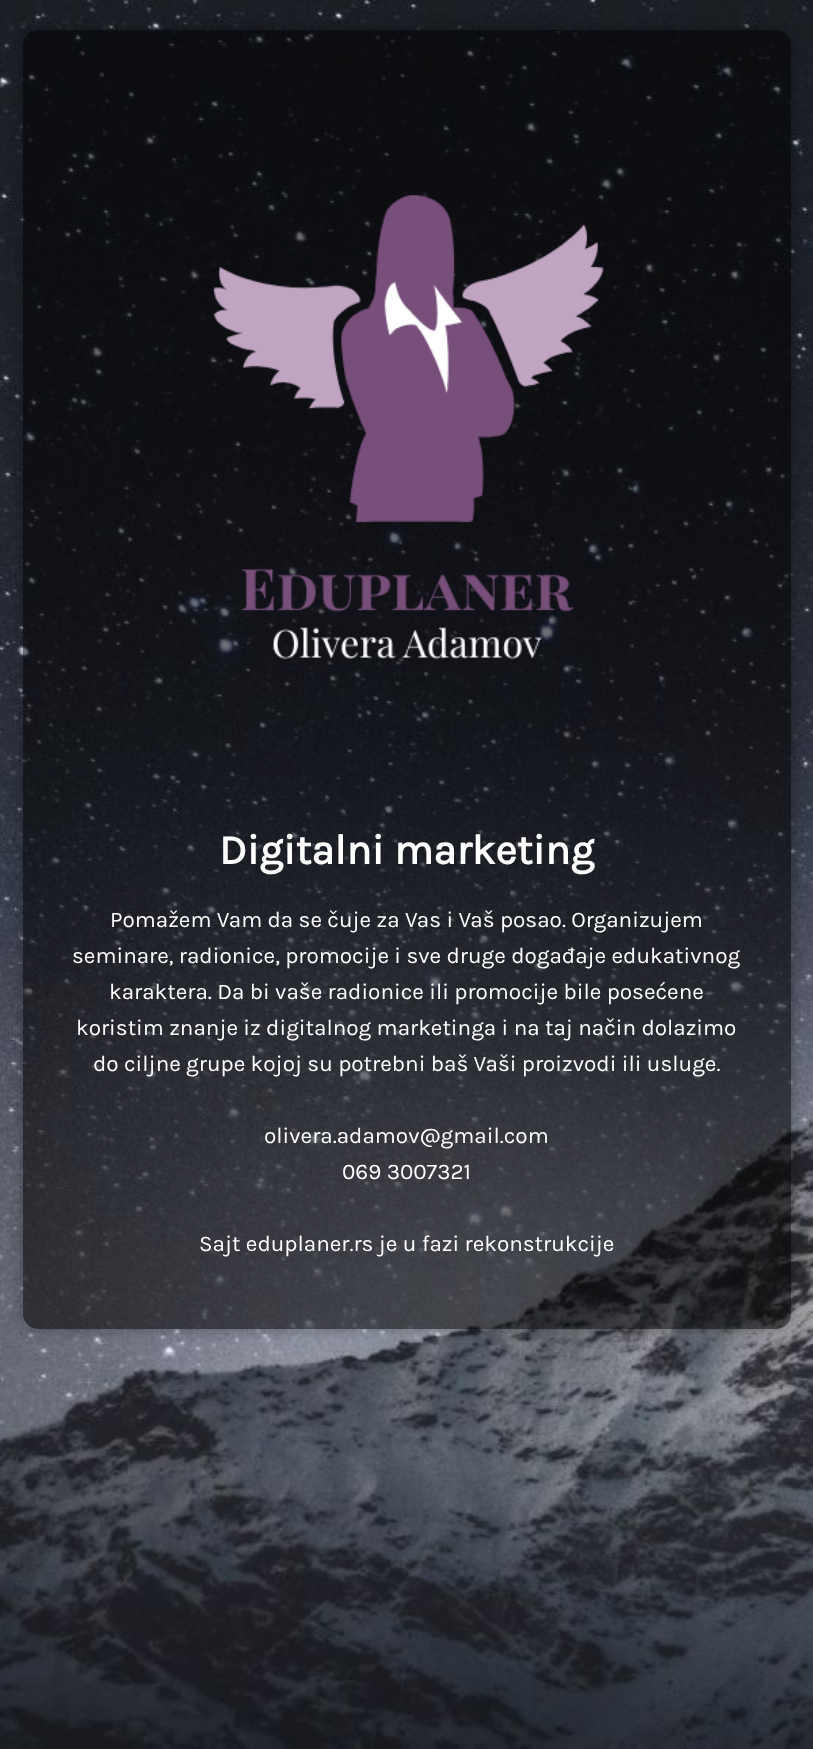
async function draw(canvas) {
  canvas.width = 813;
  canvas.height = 1749;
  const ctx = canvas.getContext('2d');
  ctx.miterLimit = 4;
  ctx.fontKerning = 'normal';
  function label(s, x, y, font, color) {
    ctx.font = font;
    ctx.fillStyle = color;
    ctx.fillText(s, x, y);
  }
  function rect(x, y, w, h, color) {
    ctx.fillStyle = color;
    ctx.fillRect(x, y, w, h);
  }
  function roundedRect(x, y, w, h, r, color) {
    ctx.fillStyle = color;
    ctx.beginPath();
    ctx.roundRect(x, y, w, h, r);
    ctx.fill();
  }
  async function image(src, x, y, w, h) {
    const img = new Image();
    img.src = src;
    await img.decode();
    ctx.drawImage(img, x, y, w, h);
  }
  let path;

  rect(0, 0, 813, 1749, '#fff');
  await image('assets/img1.png', 0, 0, 813, 1749);
  ctx.save();
  path = new Path2D('M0 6H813V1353H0ZM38 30H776C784.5 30 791 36.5 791 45V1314C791 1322.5 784.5 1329 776 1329H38C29.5 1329 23 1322.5 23 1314V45C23 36.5 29.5 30 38 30Z');
  ctx.clip(path, 'evenodd');
  ctx.fillStyle = '#00000054';
  ctx.filter = 'blur(7.5px)';
  ctx.beginPath();
  ctx.roundRect(23, 30, 768, 1299, 15);
  ctx.fill();
  ctx.filter = 'none';
  ctx.restore();
  roundedRect(23, 30, 768, 1299, 15, '#0000008c');
  await image('assets/img2.png', 213, 195, 391, 465);
  label('Digitalni marketing', 219, 864, 'bold 42px Karla', '#fff');
  label('Pomažem Vam da se čuje za Vas i Vaš posao. Organizujem', 110, 927, '22.5px Karla', '#fff');
  label('seminare, radionice, promocije i sve druge događaje edukativnog', 72, 963, '22.5px Karla', '#fff');
  label('karaktera. Da bi vaše radionice ili promocije bile posećene', 109, 999, '22.5px Karla', '#fff');
  label('koristim znanje iz digitalnog marketinga i na taj način dolazimo', 76, 1035, '22.5px Karla', '#fff');
  label('do ciljne grupe kojoj su potrebni baš Vaši proizvodi ili usluge.', 93, 1071, '22.5px Karla', '#fff');
  label('olivera.adamov@gmail.com', 264, 1143, '22.5px Karla', '#fff');
  label('069 3007321', 342, 1179, '22.5px Karla', '#fff');
  label('Sajt eduplaner.rs je u fazi rekonstrukcije', 199, 1251, '22.5px Karla', '#fff');
}

draw(document.querySelector('canvas'));
